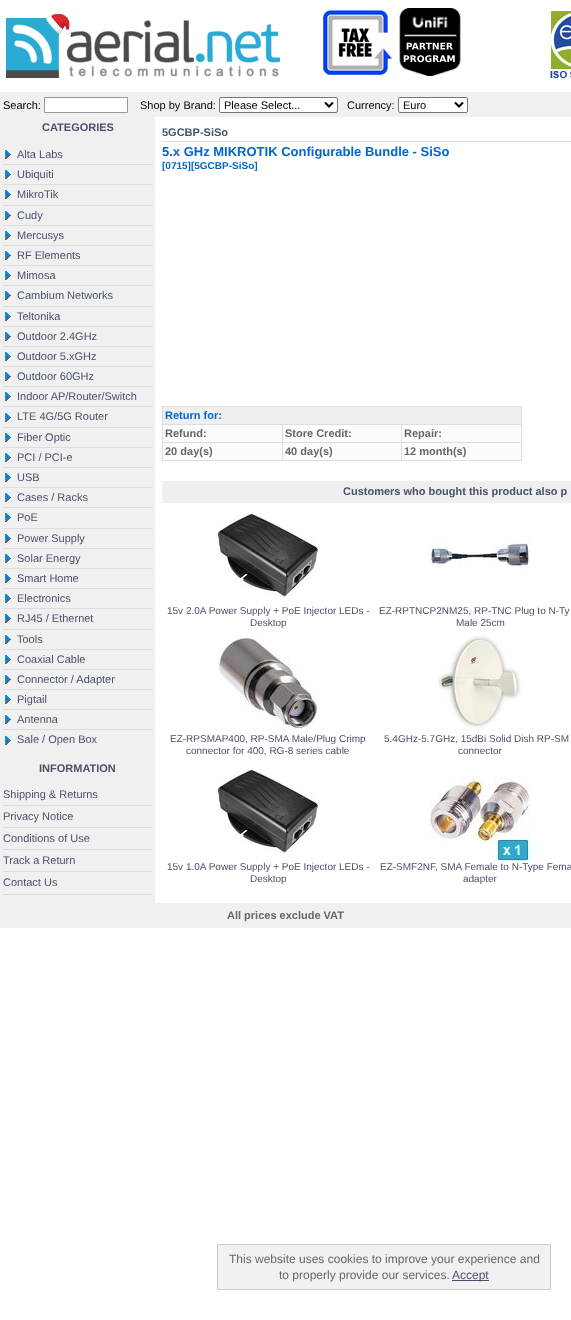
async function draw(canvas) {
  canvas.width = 571;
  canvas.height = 1320;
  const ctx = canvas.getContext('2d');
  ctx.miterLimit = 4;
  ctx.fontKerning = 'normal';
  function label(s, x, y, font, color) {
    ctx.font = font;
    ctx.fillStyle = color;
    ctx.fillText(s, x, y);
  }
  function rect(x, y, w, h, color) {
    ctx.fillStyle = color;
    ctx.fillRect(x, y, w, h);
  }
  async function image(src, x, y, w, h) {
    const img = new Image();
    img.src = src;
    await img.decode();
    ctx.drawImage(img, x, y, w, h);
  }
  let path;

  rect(0, 0, 571, 1320, '#fff');
  await image('assets/img1.png', 6, 14, 274, 64);
  await image('assets/img2.png', 323, 10, 69, 65);
  await image('assets/img3.png', 399, 8, 62, 68);
  await image('assets/img4.png', 548, 11, 23, 68);
  rect(0, 92, 571, 25, '#f0f0f0');
  label('Search:', 3, 109, '11px Liberation Sans', '#000');
  ctx.fillStyle = '#fff';
  ctx.beginPath();
  ctx.rect(44.5, 97.5, 83, 15);
  ctx.fill();
  ctx.strokeStyle = '#999';
  ctx.stroke();
  label('Shop by Brand:', 140, 109, '11px Liberation Sans', '#000');
  ctx.fillStyle = '#fff';
  ctx.beginPath();
  ctx.roundRect(219.5, 97.5, 118, 15, 1.5);
  ctx.fill();
  ctx.strokeStyle = '#767676';
  ctx.stroke();
  path = new Path2D('M325 102.5L329 106.5L333 102.5');
  ctx.strokeStyle = '#000';
  ctx.lineWidth = 2;
  ctx.stroke(path);
  label('Please Select...', 224, 109, '11px Liberation Sans', '#000');
  label('Currency:', 347, 109, '11px Liberation Sans', '#000');
  ctx.fillStyle = '#fff';
  ctx.beginPath();
  ctx.roundRect(398.5, 97.5, 69, 15, 1.5);
  ctx.fill();
  ctx.strokeStyle = '#767676';
  ctx.lineWidth = 1;
  ctx.stroke();
  path = new Path2D('M455 102.5L459 106.5L463 102.5');
  ctx.strokeStyle = '#000';
  ctx.lineWidth = 2;
  ctx.stroke(path);
  label('Euro', 403, 109, '11px Liberation Sans', '#000');
  rect(0, 117, 155, 786, '#f0f0f0');
  label('CATEGORIES', 42, 131, 'bold 11px Liberation Sans', '#495169');
  await image('assets/img5.png', 5, 150, 6, 9);
  label('Alta Labs', 17, 158, '11px Liberation Sans', '#495169');
  await image('assets/img5.png', 5, 170, 6, 9);
  rect(3, 164, 150, 1, '#ddd');
  label('Ubiquiti', 17, 178, '11px Liberation Sans', '#495169');
  await image('assets/img5.png', 5, 190, 6, 9);
  rect(3, 184, 150, 1, '#ddd');
  label('MikroTik', 17, 198, '11px Liberation Sans', '#495169');
  await image('assets/img5.png', 5, 211, 6, 9);
  rect(3, 205, 150, 1, '#ddd');
  label('Cudy', 17, 219, '11px Liberation Sans', '#495169');
  await image('assets/img5.png', 5, 231, 6, 9);
  rect(3, 225, 150, 1, '#ddd');
  label('Mercusys', 17, 239, '11px Liberation Sans', '#495169');
  await image('assets/img5.png', 5, 251, 6, 9);
  rect(3, 245, 150, 1, '#ddd');
  label('RF Elements', 17, 259, '11px Liberation Sans', '#495169');
  await image('assets/img5.png', 5, 271, 6, 9);
  rect(3, 265, 150, 1, '#ddd');
  label('Mimosa', 17, 279, '11px Liberation Sans', '#495169');
  await image('assets/img5.png', 5, 291, 6, 9);
  rect(3, 285, 150, 1, '#ddd');
  label('Cambium Networks', 17, 299, '11px Liberation Sans', '#495169');
  await image('assets/img5.png', 5, 312, 6, 9);
  rect(3, 306, 150, 1, '#ddd');
  label('Teltonika', 17, 320, '11px Liberation Sans', '#495169');
  await image('assets/img5.png', 5, 332, 6, 9);
  rect(3, 326, 150, 1, '#ddd');
  label('Outdoor 2.4GHz', 17, 340, '11px Liberation Sans', '#495169');
  await image('assets/img5.png', 5, 352, 6, 9);
  rect(3, 346, 150, 1, '#ddd');
  label('Outdoor 5.xGHz', 17, 360, '11px Liberation Sans', '#495169');
  await image('assets/img5.png', 5, 372, 6, 9);
  rect(3, 366, 150, 1, '#ddd');
  label('Outdoor 60GHz', 17, 380, '11px Liberation Sans', '#495169');
  await image('assets/img5.png', 5, 392, 6, 9);
  rect(3, 386, 150, 1, '#ddd');
  label('Indoor AP/Router/Switch', 17, 400, '11px Liberation Sans', '#495169');
  await image('assets/img5.png', 5, 413, 6, 9);
  rect(3, 406, 150, 1, '#ddd');
  label('LTE 4G/5G Router', 17, 420, '11px Liberation Sans', '#495169');
  await image('assets/img5.png', 5, 433, 6, 9);
  rect(3, 427, 150, 1, '#ddd');
  label('Fiber Optic', 17, 441, '11px Liberation Sans', '#495169');
  await image('assets/img5.png', 5, 453, 6, 9);
  rect(3, 447, 150, 1, '#ddd');
  label('PCI / PCI-e', 17, 461, '11px Liberation Sans', '#495169');
  await image('assets/img5.png', 5, 473, 6, 9);
  rect(3, 467, 150, 1, '#ddd');
  label('USB', 17, 481, '11px Liberation Sans', '#495169');
  await image('assets/img5.png', 5, 493, 6, 9);
  rect(3, 487, 150, 1, '#ddd');
  label('Cases / Racks', 17, 501, '11px Liberation Sans', '#495169');
  await image('assets/img5.png', 5, 513, 6, 9);
  rect(3, 507, 150, 1, '#ddd');
  label('PoE', 17, 521, '11px Liberation Sans', '#495169');
  await image('assets/img5.png', 5, 534, 6, 9);
  rect(3, 528, 150, 1, '#ddd');
  label('Power Supply', 17, 542, '11px Liberation Sans', '#495169');
  await image('assets/img5.png', 5, 554, 6, 9);
  rect(3, 548, 150, 1, '#ddd');
  label('Solar Energy', 17, 562, '11px Liberation Sans', '#495169');
  await image('assets/img5.png', 5, 574, 6, 9);
  rect(3, 568, 150, 1, '#ddd');
  label('Smart Home', 17, 582, '11px Liberation Sans', '#495169');
  await image('assets/img5.png', 5, 594, 6, 9);
  rect(3, 588, 150, 1, '#ddd');
  label('Electronics', 17, 602, '11px Liberation Sans', '#495169');
  await image('assets/img5.png', 5, 614, 6, 9);
  rect(3, 608, 150, 1, '#ddd');
  label('RJ45 / Ethernet', 17, 622, '11px Liberation Sans', '#495169');
  await image('assets/img5.png', 5, 635, 6, 9);
  rect(3, 629, 150, 1, '#ddd');
  label('Tools', 17, 643, '11px Liberation Sans', '#495169');
  await image('assets/img5.png', 5, 655, 6, 9);
  rect(3, 649, 150, 1, '#ddd');
  label('Coaxial Cable', 17, 663, '11px Liberation Sans', '#495169');
  await image('assets/img5.png', 5, 675, 6, 9);
  rect(3, 669, 150, 1, '#ddd');
  label('Connector / Adapter', 17, 683, '11px Liberation Sans', '#495169');
  await image('assets/img5.png', 5, 695, 6, 9);
  rect(3, 689, 150, 1, '#ddd');
  label('Pigtail', 17, 703, '11px Liberation Sans', '#495169');
  await image('assets/img5.png', 5, 715, 6, 9);
  rect(3, 709, 150, 1, '#ddd');
  label('Antenna', 17, 723, '11px Liberation Sans', '#495169');
  await image('assets/img5.png', 5, 736, 6, 9);
  rect(3, 729, 150, 1, '#ddd');
  label('Sale / Open Box', 17, 743, '11px Liberation Sans', '#495169');
  label('INFORMATION', 39, 772, 'bold 11px Liberation Sans', '#495169');
  label('Shipping & Returns', 3, 798, '11px Liberation Sans', '#495169');
  rect(3, 805, 149, 1, '#ddd');
  label('Privacy Notice', 3, 820, '11px Liberation Sans', '#495169');
  rect(3, 827, 149, 1, '#ddd');
  label('Conditions of Use', 3, 842, '11px Liberation Sans', '#495169');
  rect(3, 849, 149, 1, '#ddd');
  label('Track a Return', 3, 864, '11px Liberation Sans', '#495169');
  rect(3, 871, 149, 1, '#ddd');
  label('Contact Us', 3, 886, '11px Liberation Sans', '#495169');
  rect(3, 894, 149, 1, '#ddd');
  label('5GCBP-SiSo', 162, 136, 'bold 11px Liberation Sans', '#495169');
  rect(162, 141, 409, 1, '#dadfe0');
  label('5.x GHz MIKROTIK Configurable Bundle - SiSo', 162, 156, 'bold 13px Liberation Sans', '#06c');
  label('[0715][5GCBP-SiSo]', 162, 169, 'bold 10px Liberation Sans', '#06c');
  rect(162, 406, 360, 1, '#dadfe0');
  rect(521, 406, 1, 55, '#dadfe0');
  rect(162, 460, 360, 1, '#dadfe0');
  rect(162, 406, 1, 55, '#dadfe0');
  rect(163, 407, 358, 17, '#efefef');
  label('Return for:', 165, 419, 'bold 11px Liberation Sans', '#06c');
  rect(163, 425, 119, 17, '#fcfcfc');
  rect(401, 424, 121, 1, '#dadfe0');
  rect(401, 442, 121, 1, '#dadfe0');
  rect(401, 442, 1, 19, '#dadfe0');
  rect(282, 442, 120, 1, '#dadfe0');
  rect(401, 424, 1, 19, '#dadfe0');
  rect(282, 424, 120, 1, '#dadfe0');
  rect(282, 442, 1, 19, '#dadfe0');
  rect(162, 442, 121, 1, '#dadfe0');
  rect(282, 424, 1, 19, '#dadfe0');
  rect(162, 424, 121, 1, '#dadfe0');
  label('Refund:', 165, 437, 'bold 11px Liberation Sans', '#666');
  rect(283, 425, 118, 17, '#fcfcfc');
  label('Store Credit:', 285, 437, 'bold 11px Liberation Sans', '#666');
  rect(402, 425, 119, 17, '#fcfcfc');
  label('Repair:', 404, 437, 'bold 11px Liberation Sans', '#666');
  rect(163, 443, 119, 17, '#fcfcfc');
  label('20 day(s)', 165, 455, 'bold 11px Liberation Sans', '#666');
  rect(283, 443, 118, 17, '#fcfcfc');
  label('40 day(s)', 285, 455, 'bold 11px Liberation Sans', '#666');
  rect(402, 443, 119, 17, '#fcfcfc');
  label('12 month(s)', 404, 455, 'bold 11px Liberation Sans', '#666');
  rect(162, 481, 409, 22, '#efefef');
  label('Customers who bought this product also p', 343, 495, 'bold 11px Liberation Sans', '#495169');
  await image('assets/img6.png', 218, 513, 100, 87);
  label('15v 2.0A Power Supply + PoE Injector LEDs -', 167, 614, '10px Liberation Sans', '#495169');
  label('Desktop', 250, 626, '10px Liberation Sans', '#495169');
  await image('assets/img7.png', 430, 537, 100, 32);
  label('EZ-RPTNCP2NM25, RP-TNC Plug to N-Ty', 379, 614, '10px Liberation Sans', '#495169');
  label('Male 25cm', 456, 626, '10px Liberation Sans', '#495169');
  await image('assets/img8.png', 218, 634, 100, 95);
  label('EZ-RPSMAP400, RP-SMA Male/Plug Crimp', 170, 742, '10px Liberation Sans', '#495169');
  label('connector for 400, RG-8 series cable', 186, 754, '10px Liberation Sans', '#495169');
  await image('assets/img9.png', 438, 635, 83, 94);
  label('5.4GHz-5.7GHz, 15dBi Solid Dish RP-SM', 384, 742, '10px Liberation Sans', '#495169');
  label('connector', 458, 754, '10px Liberation Sans', '#495169');
  await image('assets/img6.png', 218, 769, 100, 87);
  label('15v 1.0A Power Supply + PoE Injector LEDs -', 167, 870, '10px Liberation Sans', '#495169');
  label('Desktop', 250, 882, '10px Liberation Sans', '#495169');
  await image('assets/img10.png', 430, 777, 100, 84);
  label('EZ-SMF2NF, SMA Female to N-Type Fema', 380, 870, '10px Liberation Sans', '#495169');
  label('adapter', 463, 882, '10px Liberation Sans', '#495169');
  rect(0, 903, 571, 25, '#f0f0f0');
  label('All prices exclude VAT', 227, 919, 'bold 11px Liberation Sans', '#666');
  ctx.fillStyle = '#f1f1f1';
  ctx.beginPath();
  ctx.rect(217.5, 1244.5, 333, 45);
  ctx.fill();
  ctx.strokeStyle = '#cacaca';
  ctx.lineWidth = 1;
  ctx.stroke();
  label('This website uses cookies to improve your experience and', 229, 1263, '12px Liberation Sans', '#666');
  label('to properly provide our services.', 279, 1279, '12px Liberation Sans', '#666');
  rect(452, 1280, 37, 1, '#495169');
  label('Accept', 452, 1279, '12px Liberation Sans', '#495169');
}

draw(document.querySelector('canvas'));
